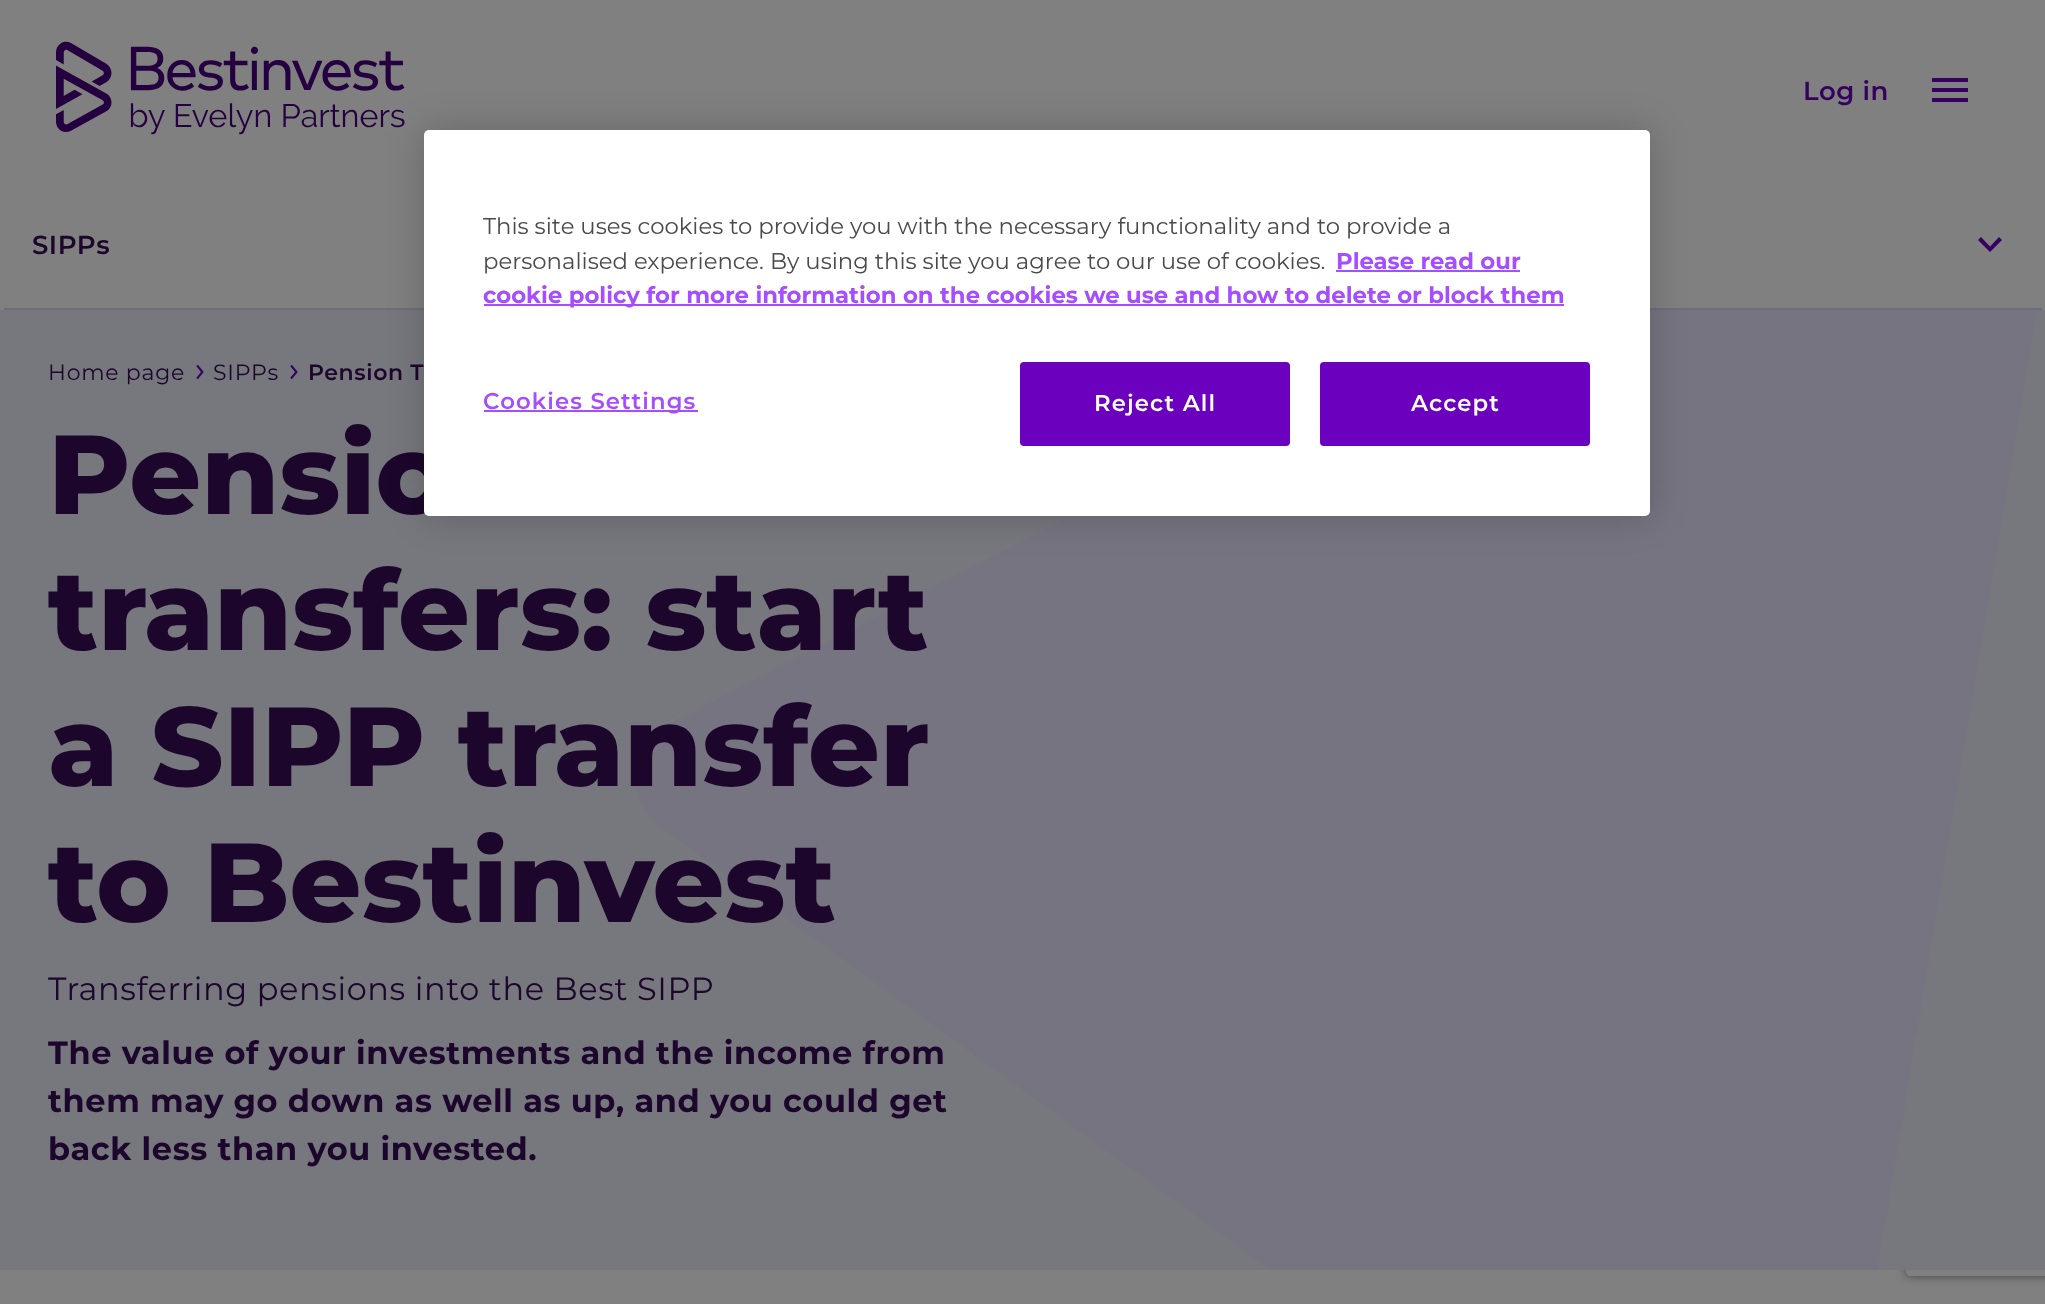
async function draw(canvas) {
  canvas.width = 2045;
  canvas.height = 1304;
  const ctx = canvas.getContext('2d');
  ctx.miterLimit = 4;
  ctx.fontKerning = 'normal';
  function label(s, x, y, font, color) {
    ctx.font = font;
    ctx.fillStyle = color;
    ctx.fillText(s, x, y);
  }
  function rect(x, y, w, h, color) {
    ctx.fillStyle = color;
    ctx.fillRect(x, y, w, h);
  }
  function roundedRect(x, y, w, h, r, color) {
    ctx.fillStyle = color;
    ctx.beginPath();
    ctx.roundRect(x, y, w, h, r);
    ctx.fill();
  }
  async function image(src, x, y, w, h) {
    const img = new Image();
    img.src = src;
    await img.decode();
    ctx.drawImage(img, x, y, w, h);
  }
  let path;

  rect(0, 0, 2045, 1304, '#808080');
  await image('assets/img1.png', 56, 41, 349, 94);
  ctx.letterSpacing = '0.5px';
  label('Log in', 1803, 100, '100 26px "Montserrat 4"', '#360060');
  path = new Path2D('M1932 102H1968V98H1932ZM1932 92H1968V88H1932ZM1932 78V82H1968V78Z');
  ctx.fill(path);
  rect(4, 308, 2038, 2, '#6f6d77');
  label('SIPPs', 32, 254, '100 26px "Montserrat 4"', '#1c062c');
  ctx.fillStyle = '#360060';
  path = new Path2D('M1999 237L1990 246.5L1981 237L1978 240L1990 252L2002 240Z');
  ctx.fill(path);
  ctx.save();
  path = new Path2D('M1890 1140H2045V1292H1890ZM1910 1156H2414C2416 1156 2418 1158 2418 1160V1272C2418 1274 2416 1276 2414 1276H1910C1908 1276 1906 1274 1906 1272V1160C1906 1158 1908 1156 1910 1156Z');
  ctx.clip(path, 'evenodd');
  ctx.fillStyle = '#404040';
  ctx.filter = 'blur(5px)';
  ctx.beginPath();
  ctx.roundRect(1906, 1156, 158, 120, 4);
  ctx.fill();
  ctx.filter = 'none';
  ctx.restore();
  rect(0, 310, 2045, 960, '#77777e');
  ctx.save();
  ctx.beginPath();
  ctx.rect(582, 310, 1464, 960);
  ctx.clip();
  ctx.fillStyle = '#767480';
  path = new Path2D('M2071 105L1828 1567C1822 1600 1791 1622 1759 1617C1749 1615 1741 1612 1733 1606L661 827C634 807 628 770 647 743C653 735 660 729 668 725L1984 42C2013 27 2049 38 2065 68C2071 79 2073 92 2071 105Z');
  ctx.fill(path, 'evenodd');
  ctx.restore();
  ctx.letterSpacing = '0.75px';
  label('Home page', 48, 380, '100 22px "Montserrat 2"', '#1c062c');
  await image('assets/img2.png', 196, 365, 8, 14);
  label('SIPPs', 213, 380, '100 22px "Montserrat 2"', '#1c062c');
  await image('assets/img2.png', 290, 365, 8, 14);
  ctx.letterSpacing = '0.6px';
  label('Pension T', 308, 380, '100 22px "Montserrat 4"', '#1c062c');
  ctx.letterSpacing = '0px';
  label('Pensio', 48, 514, '100 112px Montserrat', '#1c062c');
  label('transfers: start', 48, 650, '100 112px Montserrat', '#1c062c');
  label('a SIPP transfer', 48, 786, '100 112px Montserrat', '#1c062c');
  label('to Bestinvest', 48, 922, '100 112px Montserrat', '#1c062c');
  ctx.letterSpacing = '0.6px';
  label('Transferring pensions into the Best SIPP', 48, 1000, '100 32px "Montserrat 2"', '#1c062c');
  label('The value of your investments and the income from', 48, 1064, '100 32px "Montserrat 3"', '#1c062c');
  label('them may go down as well as up, and you could get', 48, 1112, '100 32px "Montserrat 3"', '#1c062c');
  label('back less than you invested.', 48, 1160, '100 32px "Montserrat 3"', '#1c062c');
  ctx.fillStyle = '#00000033';
  ctx.filter = 'blur(18px)';
  ctx.beginPath();
  ctx.roundRect(424, 130, 1226, 386, 5);
  ctx.fill();
  ctx.filter = 'none';
  roundedRect(424, 130, 1226, 386, 5, '#fff');
  ctx.letterSpacing = '0px';
  label('This site uses cookies to provide you with the necessary functionality and to provide a', 483, 234, '100 22.75px "Montserrat 2"', '#4a4a4a');
  label('personalised experience. By using this site you agree to our use of cookies.', 483, 269, '100 22.75px "Montserrat 2"', '#4a4a4a');
  label('Please read our', 1336, 269, '100 22.75px "Montserrat 3"', '#a64dff');
  rect(1336, 270, 184, 2, '#a64dff');
  rect(484, 304, 1080, 2, '#a64dff');
  label('cookie policy for more information on the cookies we use and how to delete or block them', 483, 303, '100 22.75px "Montserrat 3"', '#a64dff');
  rect(484, 410, 214, 2, '#a64dff');
  ctx.letterSpacing = '1.1px';
  label('Cookies Settings', 483, 409, '100 22.75px "Montserrat 4"', '#a64dff');
  ctx.fillStyle = '#6c00bf';
  ctx.beginPath();
  ctx.roundRect(1021, 363, 268, 82, 3);
  ctx.fill();
  ctx.strokeStyle = '#6c00bf';
  ctx.lineWidth = 2;
  ctx.stroke();
  label('Reject All', 1094, 411, '100 22.75px "Montserrat 4"', '#fff');
  ctx.fillStyle = '#6c00bf';
  ctx.beginPath();
  ctx.roundRect(1321, 363, 268, 82, 3);
  ctx.fill();
  ctx.stroke();
  label('Accept', 1411, 411, '100 22.75px "Montserrat 4"', '#fff');
}

draw(document.querySelector('canvas'));
